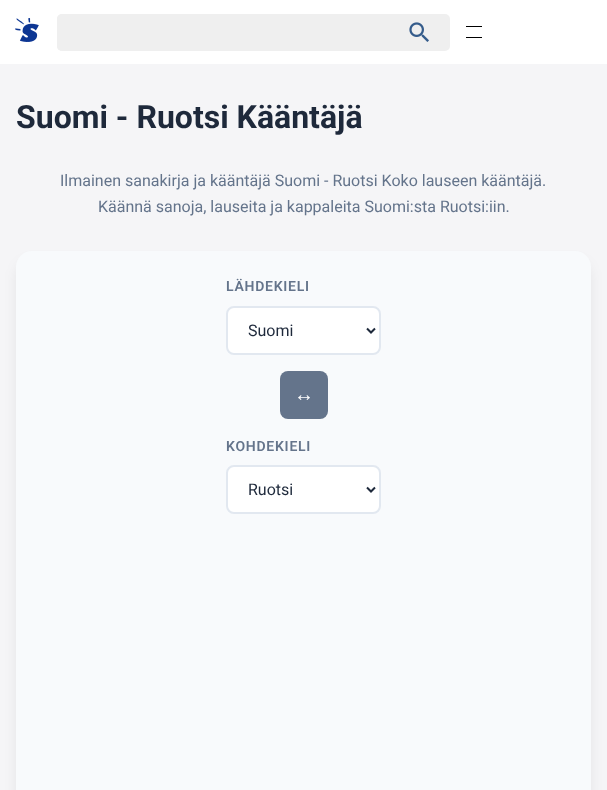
async function draw(canvas) {
  canvas.width = 607;
  canvas.height = 790;
  const ctx = canvas.getContext('2d');
  ctx.miterLimit = 4;
  ctx.fontKerning = 'normal';
  function label(s, x, y, font, color) {
    ctx.font = font;
    ctx.fillStyle = color;
    ctx.fillText(s, x, y);
  }
  function rect(x, y, w, h, color) {
    ctx.fillStyle = color;
    ctx.fillRect(x, y, w, h);
  }
  function roundedRect(x, y, w, h, r, color) {
    ctx.fillStyle = color;
    ctx.beginPath();
    ctx.roundRect(x, y, w, h, r);
    ctx.fill();
  }
  async function image(src, x, y, w, h) {
    const img = new Image();
    img.src = src;
    await img.decode();
    ctx.drawImage(img, x, y, w, h);
  }
  let path;

  rect(0, 0, 607, 790, '#f5f5f7');
  rect(0, 0, 607, 64, '#fff');
  await image('assets/img1.png', 15, 18, 24, 24);
  roundedRect(57, 14, 393, 37, 5, '#efefef');
  roundedRect(57, 14, 307, 37, 5, '#efefef');
  await image('assets/img2.png', 409, 22, 20, 20);
  rect(466, 26, 16, 1, '#000');
  rect(466, 37, 16, 1, '#000');
  label('Suomi - Ruotsi Kääntäjä', 16, 128, 'bold 32px Roboto', '#1e293b');
  label('Ilmainen sanakirja ja kääntäjä Suomi - Ruotsi Koko lauseen kääntäjä.', 60, 186, '16px Roboto', '#64748b');
  label('Käännä sanoja, lauseita ja kappaleita Suomi:sta Ruotsi:iin.', 98, 212, '16px Roboto', '#64748b');
  ctx.fillStyle = '#0000001a';
  ctx.filter = 'blur(7.5px)';
  ctx.beginPath();
  ctx.roundRect(19, 264, 569, 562, 13);
  ctx.fill();
  ctx.filter = 'none';
  ctx.fillStyle = '#f8fafc';
  path = new Path2D('M32 251H575C584 251 591 258 591 267V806H16V267C16 258 23 251 32 251Z');
  ctx.fill(path);
  ctx.letterSpacing = '0.75px';
  label('LÄHDEKIELI', 226, 291, '600 14px Roboto', '#64748b');
  ctx.fillStyle = '#fff';
  ctx.beginPath();
  ctx.roundRect(227, 307, 153, 47, 7);
  ctx.fill();
  ctx.strokeStyle = '#e2e8f0';
  ctx.lineWidth = 2;
  ctx.stroke();
  path = new Path2D('M367 328.5L371 332.5L375 328.5');
  ctx.strokeStyle = '#1e293b';
  ctx.stroke(path);
  ctx.letterSpacing = '0px';
  label('Suomi', 248, 336, '16px Roboto', '#1e293b');
  roundedRect(280, 371, 48, 48, 8, '#64748b');
  label('↔', 294, 401, '20px Liberation Sans', '#fff');
  ctx.letterSpacing = '0.75px';
  label('KOHDEKIELI', 226, 451, '600 14px Roboto', '#64748b');
  ctx.fillStyle = '#fff';
  ctx.beginPath();
  ctx.roundRect(227, 466, 153, 47, 7);
  ctx.fill();
  ctx.strokeStyle = '#e2e8f0';
  ctx.stroke();
  path = new Path2D('M367 487.5L371 491.5L375 487.5');
  ctx.strokeStyle = '#1e293b';
  ctx.stroke(path);
  ctx.letterSpacing = '0px';
  label('Ruotsi', 248, 495, '16px Roboto', '#1e293b');
}

draw(document.querySelector('canvas'));
